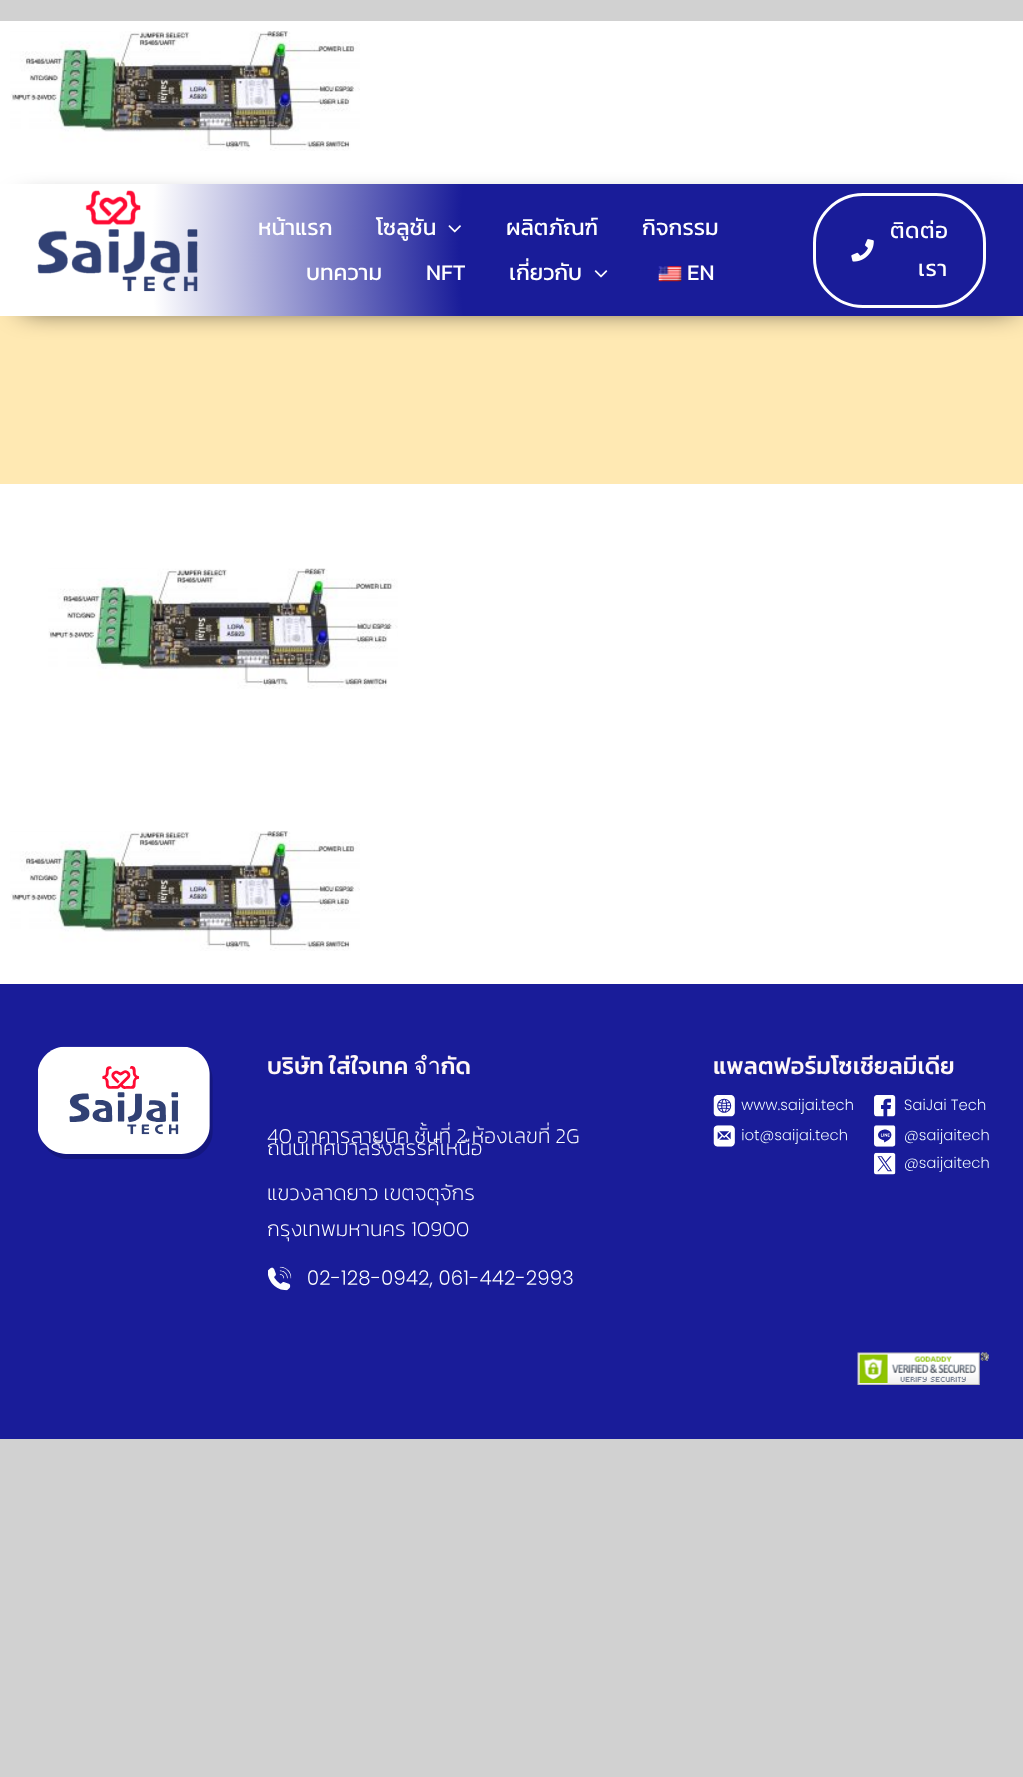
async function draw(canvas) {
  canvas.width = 1023;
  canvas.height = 1777;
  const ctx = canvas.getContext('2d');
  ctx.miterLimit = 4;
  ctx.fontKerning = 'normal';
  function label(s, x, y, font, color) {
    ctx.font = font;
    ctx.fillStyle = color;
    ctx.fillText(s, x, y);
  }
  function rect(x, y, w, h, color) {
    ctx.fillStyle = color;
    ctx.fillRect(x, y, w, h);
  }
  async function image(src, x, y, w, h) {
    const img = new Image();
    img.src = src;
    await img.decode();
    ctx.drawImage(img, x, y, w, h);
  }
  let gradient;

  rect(0, 0, 1023, 1777, '#d1d1d1');
  rect(0, 21, 1023, 963, '#fff');
  await image('assets/img1.png', 10, 31, 350, 120);
  rect(0, 316, 1023, 168, '#ffe9b3');
  ctx.fillStyle = '#000';
  ctx.filter = 'blur(14.5px)';
  ctx.beginPath();
  ctx.rect(23, 206, 991, 100);
  ctx.fill();
  ctx.filter = 'none';
  gradient = ctx.createRadialGradient(1024, 250, 0, 1024, 250, 1026);
  gradient.addColorStop(0.55, '#191c99');
  gradient.addColorStop(0.85, '#fff');
  ctx.fillStyle = gradient;
  ctx.fillRect(0, 184, 1023, 132);
  await image('assets/img2.png', 37, 190, 161, 102);
  label('หน้าแรก', 258, 235, '22.5px Kanit', '#fff');
  label('โซลูชัน', 376, 235, '22.5px Kanit', '#fff');
  await image('assets/img3.png', 448, 225, 13, 8);
  label('ผลิตภัณฑ์', 506, 235, '22.5px Kanit', '#fff');
  label('กิจกรรม', 642, 235, '22.5px Kanit', '#fff');
  label('บทความ', 306, 280, '22.5px Kanit', '#fff');
  label('NFT', 426, 280, '22.5px Kanit', '#fff');
  label('เกี่ยวกับ', 509, 280, '22.5px Kanit', '#fff');
  await image('assets/img4.png', 594, 270, 14, 8);
  await image('assets/img5.png', 658, 266, 24, 16);
  label('EN', 687, 280, '22.5px Kanit', '#fff');
  ctx.beginPath();
  ctx.roundRect(814.5, 194.5, 170, 112, 48.5);
  ctx.strokeStyle = '#fff';
  ctx.lineWidth = 3;
  ctx.stroke();
  await image('assets/img6.png', 851, 239, 23, 23);
  ctx.letterSpacing = '0.5px';
  label('ติดต่อ', 890, 238, '22.5px Kanit', '#fff');
  label('เรา', 918, 276, '22.5px Kanit', '#fff');
  await image('assets/img7.png', 48, 568, 350, 121);
  await image('assets/img1.png', 10, 831, 350, 120);
  rect(0, 984, 1023, 455, '#191c99');
  await image('assets/img8.png', 38, 1046, 175, 113);
  ctx.letterSpacing = '0px';
  label('บริษัท ใส่ใจเทค จำกัด', 267, 1074, '500 23.75px Kanit', '#fff7f7');
  label('40 อาคารลายูนิค ชั้นที่ 2 ห้องเลขที่ 2G', 267, 1143, '200 21.25px Kanit', '#fff');
  label('ถนนเทศบาลรังสรรค์เหนือ', 267, 1155, '200 21.25px Kanit', '#fff');
  label('แขวงลาดยาว เขตจตุจักร', 267, 1200, '200 21.25px Kanit', '#fff');
  label('กรุงเทพมหานคร 10900', 267, 1236, '200 21.25px Kanit', '#fff');
  await image('assets/img9.png', 268, 1266, 305, 25);
  label('แพลตฟอร์มโซเชียลมีเดีย', 713, 1074, '500 23.75px Kanit', '#fff7f7');
  await image('assets/img10.png', 713, 1095, 276, 80);
  await image('assets/img11.png', 857, 1352, 132, 33);
}

draw(document.querySelector('canvas'));
